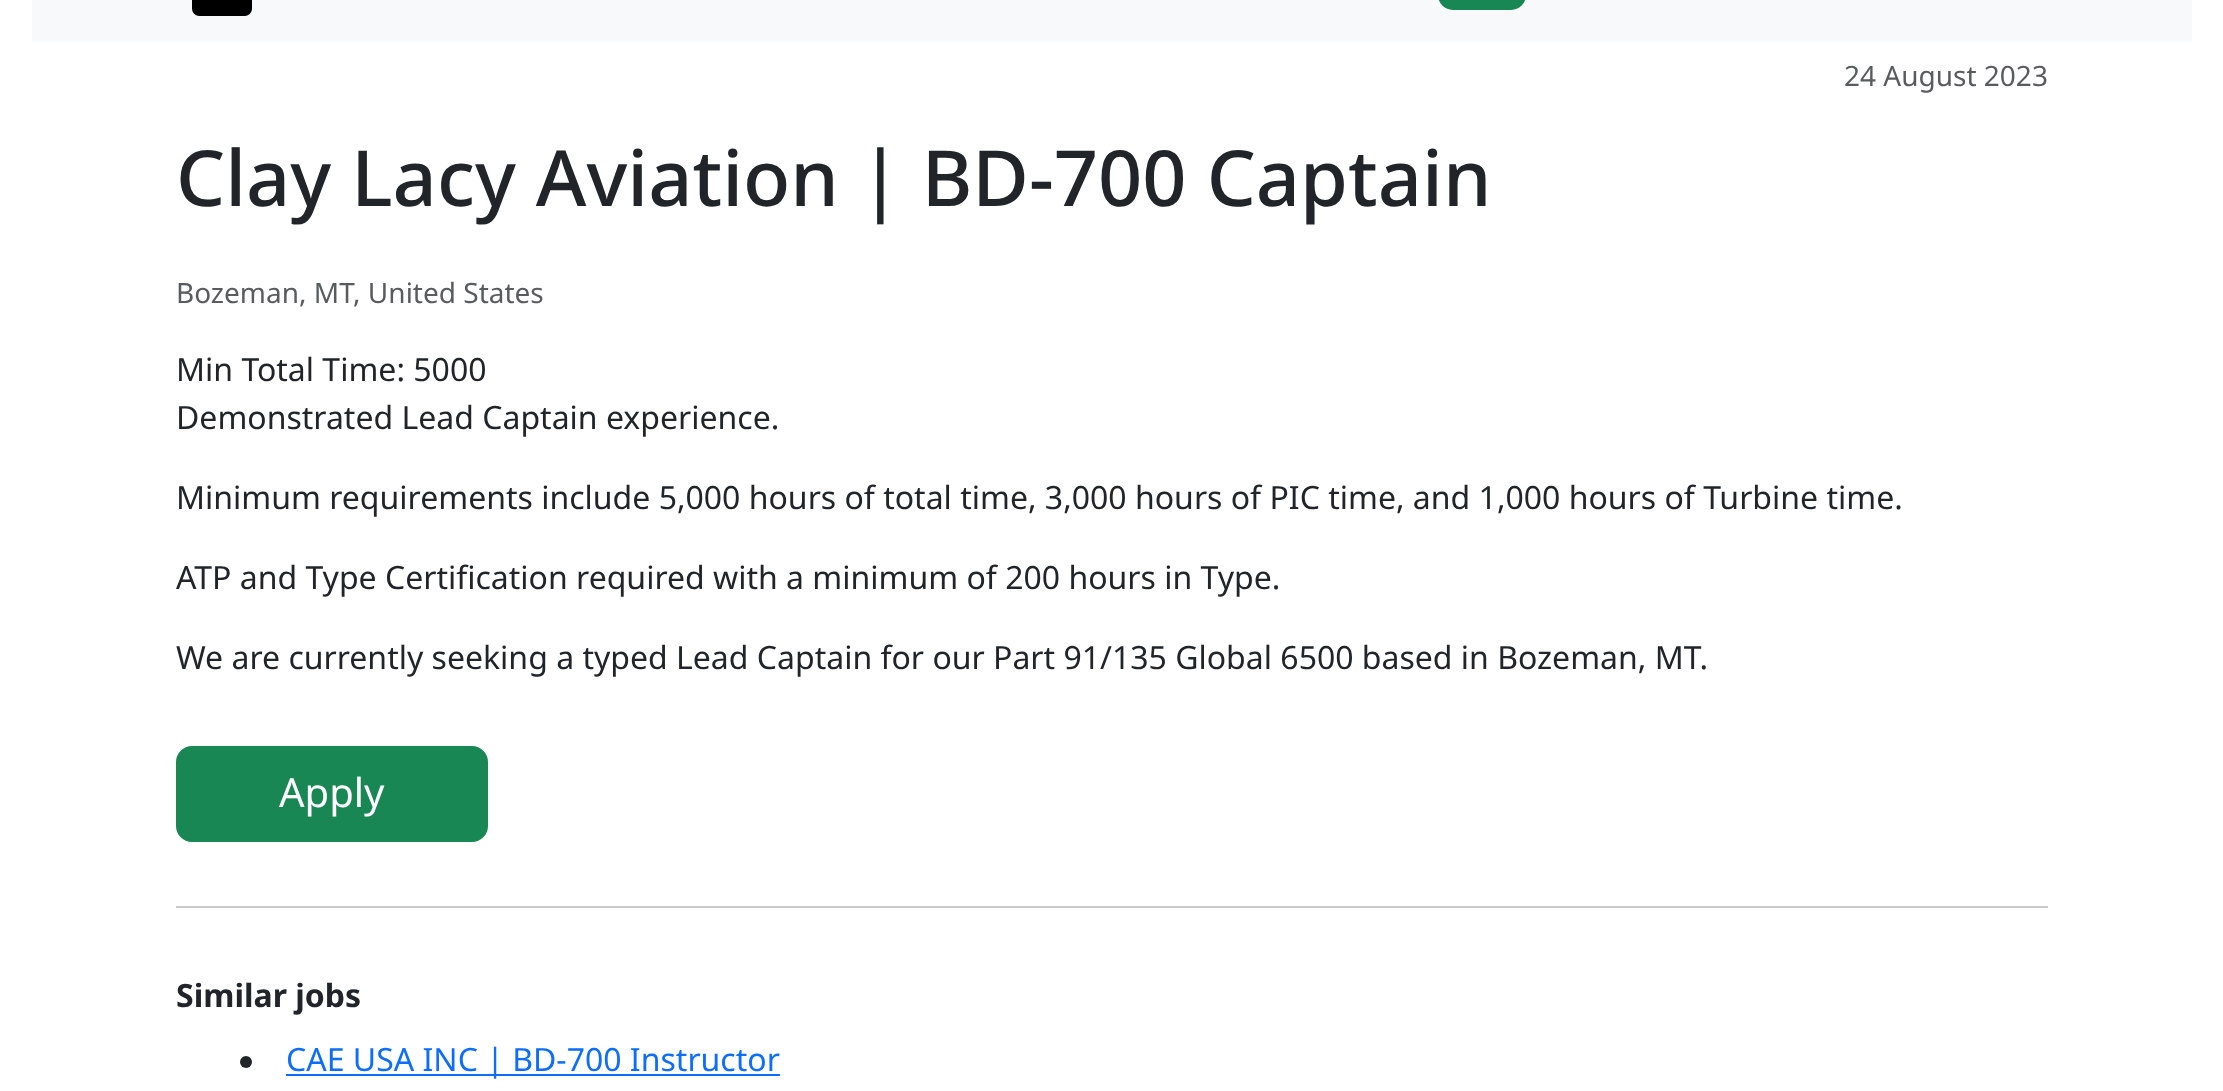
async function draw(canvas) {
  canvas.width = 2223;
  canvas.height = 1091;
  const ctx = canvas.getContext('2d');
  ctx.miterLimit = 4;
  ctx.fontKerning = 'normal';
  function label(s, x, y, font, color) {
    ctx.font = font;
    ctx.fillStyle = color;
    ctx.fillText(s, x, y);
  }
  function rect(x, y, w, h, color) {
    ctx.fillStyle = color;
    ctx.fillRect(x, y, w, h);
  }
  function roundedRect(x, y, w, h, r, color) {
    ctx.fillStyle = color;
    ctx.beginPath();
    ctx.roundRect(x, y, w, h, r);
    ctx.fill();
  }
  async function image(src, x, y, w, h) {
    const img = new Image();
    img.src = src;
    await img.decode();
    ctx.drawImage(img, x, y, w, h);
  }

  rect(0, 0, 2223, 1091, '#fff');
  rect(32, 0, 2160, 42, '#f8f9fa');
  await image('assets/img1.png', 192, 0, 60, 16);
  roundedRect(1438, -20, 88, 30, 20, '#198754');
  label('24 August 2023', 1844, 86, '28px Noto Sans', '#595c5f');
  label('Clay Lacy Aviation | BD-700 Captain', 176, 206, '500 77.4px Noto Sans', '#212529');
  label('Bozeman, MT, United States', 176, 303, '28px Noto Sans', '#595c5f');
  label('Min Total Time: 5000', 176, 381, '32px Noto Sans', '#212529');
  label('Demonstrated Lead Captain experience.', 176, 429, '32px Noto Sans', '#212529');
  label('Minimum requirements include 5,000 hours of total time, 3,000 hours of PIC time, and 1,000 hours of Turbine time.', 176, 509, '32px Noto Sans', '#212529');
  label('ATP and Type Certification required with a minimum of 200 hours in Type.', 176, 589, '32px Noto Sans', '#212529');
  label('We are currently seeking a typed Lead Captain for our Part 91/135 Global 6500 based in Bozeman, MT.', 176, 669, '32px Noto Sans', '#212529');
  ctx.fillStyle = '#198754';
  ctx.beginPath();
  ctx.roundRect(177, 747, 310, 94, 15);
  ctx.fill();
  ctx.strokeStyle = '#198754';
  ctx.lineWidth = 2;
  ctx.stroke();
  label('Apply', 279, 807, '40px Noto Sans', '#fff');
  rect(176, 906, 1872, 2, '#c8c9ca');
  label('Similar jobs', 176, 1007, 'bold 32px Noto Sans', '#212529');
  ctx.beginPath();
  ctx.arc(246, 1062, 6, 0, 2 * Math.PI);
  ctx.fill();
  rect(286, 1074, 494, 2, '#0d6efd');
  label('CAE USA INC | BD-700 Instructor', 286, 1071, '32px Noto Sans', '#0d6efd');
}

draw(document.querySelector('canvas'));
